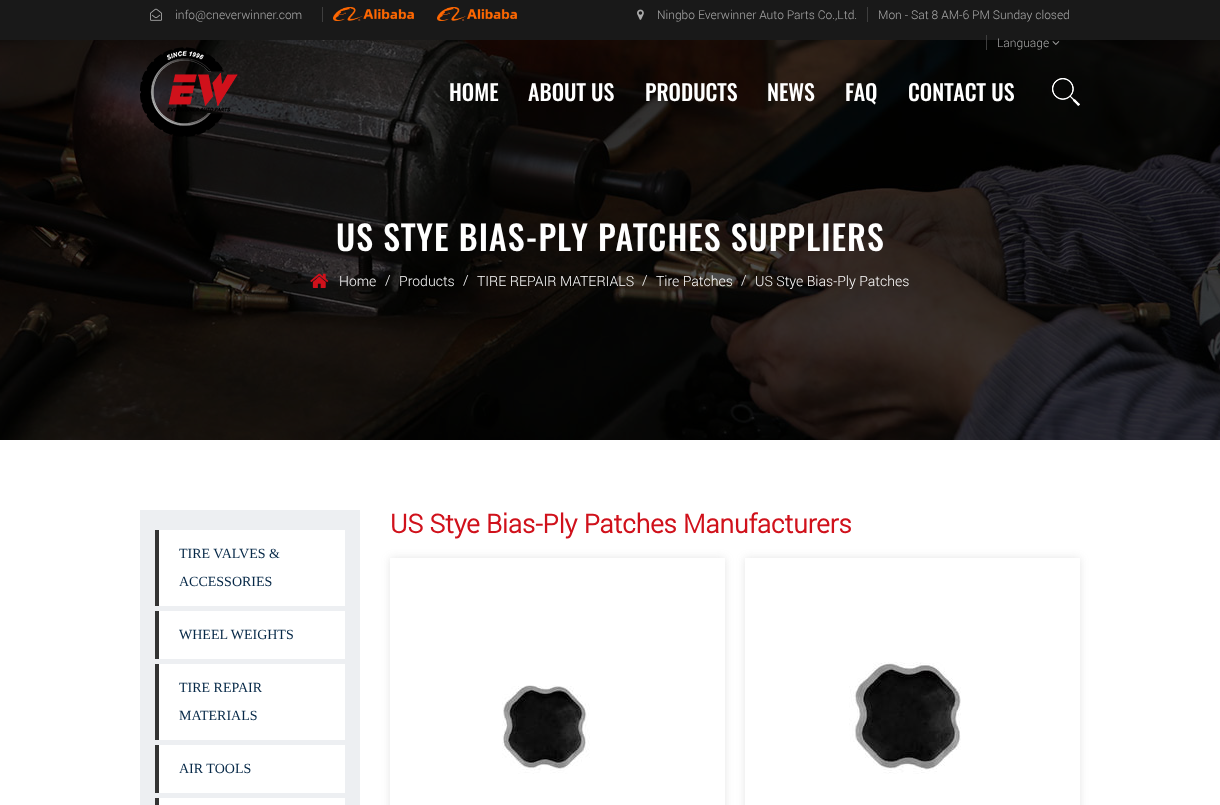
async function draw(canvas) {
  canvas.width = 1220;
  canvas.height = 805;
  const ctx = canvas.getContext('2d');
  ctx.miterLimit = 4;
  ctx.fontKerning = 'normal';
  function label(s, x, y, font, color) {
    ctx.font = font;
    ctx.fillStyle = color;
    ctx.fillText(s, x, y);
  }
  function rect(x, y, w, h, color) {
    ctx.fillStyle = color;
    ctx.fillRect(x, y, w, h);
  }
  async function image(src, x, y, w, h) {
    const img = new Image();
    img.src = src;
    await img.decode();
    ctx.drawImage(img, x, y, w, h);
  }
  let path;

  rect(0, 0, 1220, 805, '#fff');
  rect(0, 0, 1220, 40, '#191919');
  await image('assets/img1.png', 150, 8, 12, 13);
  label('info@cneverwinner.com', 175, 19, '300 12px Roboto', '#ababab');
  rect(322, 7, 1, 15, '#3e3e3e');
  await image('assets/img2.png', 333, 7, 81, 14);
  await image('assets/img3.png', 437, 7, 80, 14);
  await image('assets/img4.png', 637, 9, 7, 11);
  label('Ningbo Everwinner Auto Parts Co.,Ltd.', 657, 19, '300 12px Roboto', '#ababab');
  rect(867, 7, 1, 15, '#3e3e3e');
  label('Mon - Sat 8 AM-6 PM Sunday closed', 878, 19, '300 12px Roboto', '#ababab');
  await image('assets/img8.png', 0, 40, 1220, 400);
  rect(986, 35, 1, 15, '#3e3e3e');
  label('Language', 997, 47, '300 12px Roboto', '#ababab');
  await image('assets/img5.png', 1052, 41, 8, 4);
  await image('assets/img6.png', 140, 47, 98, 90);
  label('HOME', 449, 101, '500 22px Oswald', '#fff');
  label('ABOUT US', 528, 101, '500 22px Oswald', '#fff');
  label('PRODUCTS', 645, 101, '500 22px Oswald', '#fff');
  label('NEWS', 767, 101, '500 22px Oswald', '#fff');
  label('FAQ', 845, 101, '500 22px Oswald', '#fff');
  label('CONTACT US', 908, 101, '500 22px Oswald', '#fff');
  await image('assets/img7.png', 1052, 78, 28, 28);
  ctx.letterSpacing = '1px';
  label('US STYE BIAS-PLY PATCHES SUPPLIERS', 336, 251, '500 34px Oswald', '#fff');
  await image('assets/img9.png', 310, 273, 19, 15);
  ctx.letterSpacing = '0px';
  label('Home', 339, 286, '300 14px Roboto', '#fff');
  label('/', 385, 285, '300 14px Roboto', '#fff');
  label('Products', 399, 286, '300 14px Roboto', '#fff');
  label('/', 463, 285, '300 14px Roboto', '#fff');
  label('TIRE REPAIR MATERIALS', 477, 286, '300 14px Roboto', '#fff');
  label('/', 642, 285, '300 14px Roboto', '#fff');
  label('Tire Patches', 656, 286, '300 14px Roboto', '#fff');
  label('/', 741, 285, '300 14px Roboto', '#fff');
  label('US Stye Bias-Ply Patches', 755, 286, '300 14px Roboto', '#fff');
  label('US Stye Bias-Ply Patches Manufacturers', 390, 533, 'bold 26px Roboto', '#d0111b');
  ctx.save();
  path = new Path2D('M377 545H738V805H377ZM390 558H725V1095H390Z');
  ctx.clip(path, 'evenodd');
  ctx.fillStyle = '#7d7d7d33';
  ctx.filter = 'blur(4px)';
  ctx.beginPath();
  ctx.rect(390, 558, 335, 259);
  ctx.fill();
  ctx.filter = 'none';
  ctx.restore();
  await image('assets/img10.png', 502, 685, 88, 89);
  ctx.save();
  path = new Path2D('M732 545H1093V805H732ZM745 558H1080V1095H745Z');
  ctx.clip(path, 'evenodd');
  ctx.fillStyle = '#7d7d7d33';
  ctx.filter = 'blur(4px)';
  ctx.beginPath();
  ctx.rect(745, 558, 335, 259);
  ctx.fill();
  ctx.filter = 'none';
  ctx.restore();
  await image('assets/img11.png', 849, 662, 112, 112);
  rect(140, 510, 220, 295, '#edeff2');
  rect(159, 530, 186, 76, '#fff');
  rect(155, 530, 4, 76, '#333');
  label('TIRE VALVES &', 179, 558, '14px Liberation Serif', '#072948');
  label('ACCESSORIES', 179, 586, '14px Liberation Serif', '#072948');
  rect(159, 611, 186, 48, '#fff');
  rect(155, 611, 4, 48, '#333');
  label('WHEEL WEIGHTS', 179, 639, '14px Liberation Serif', '#072948');
  rect(159, 664, 186, 76, '#fff');
  rect(155, 664, 4, 76, '#333');
  label('TIRE REPAIR', 179, 692, '14px Liberation Serif', '#072948');
  label('MATERIALS', 179, 720, '14px Liberation Serif', '#072948');
  rect(159, 745, 186, 48, '#fff');
  rect(155, 745, 4, 48, '#333');
  label('AIR TOOLS', 179, 773, '14px Liberation Serif', '#072948');
  rect(155, 798, 190, 7, '#fff');
  rect(155, 798, 4, 7, '#333');
}

draw(document.querySelector('canvas'));
